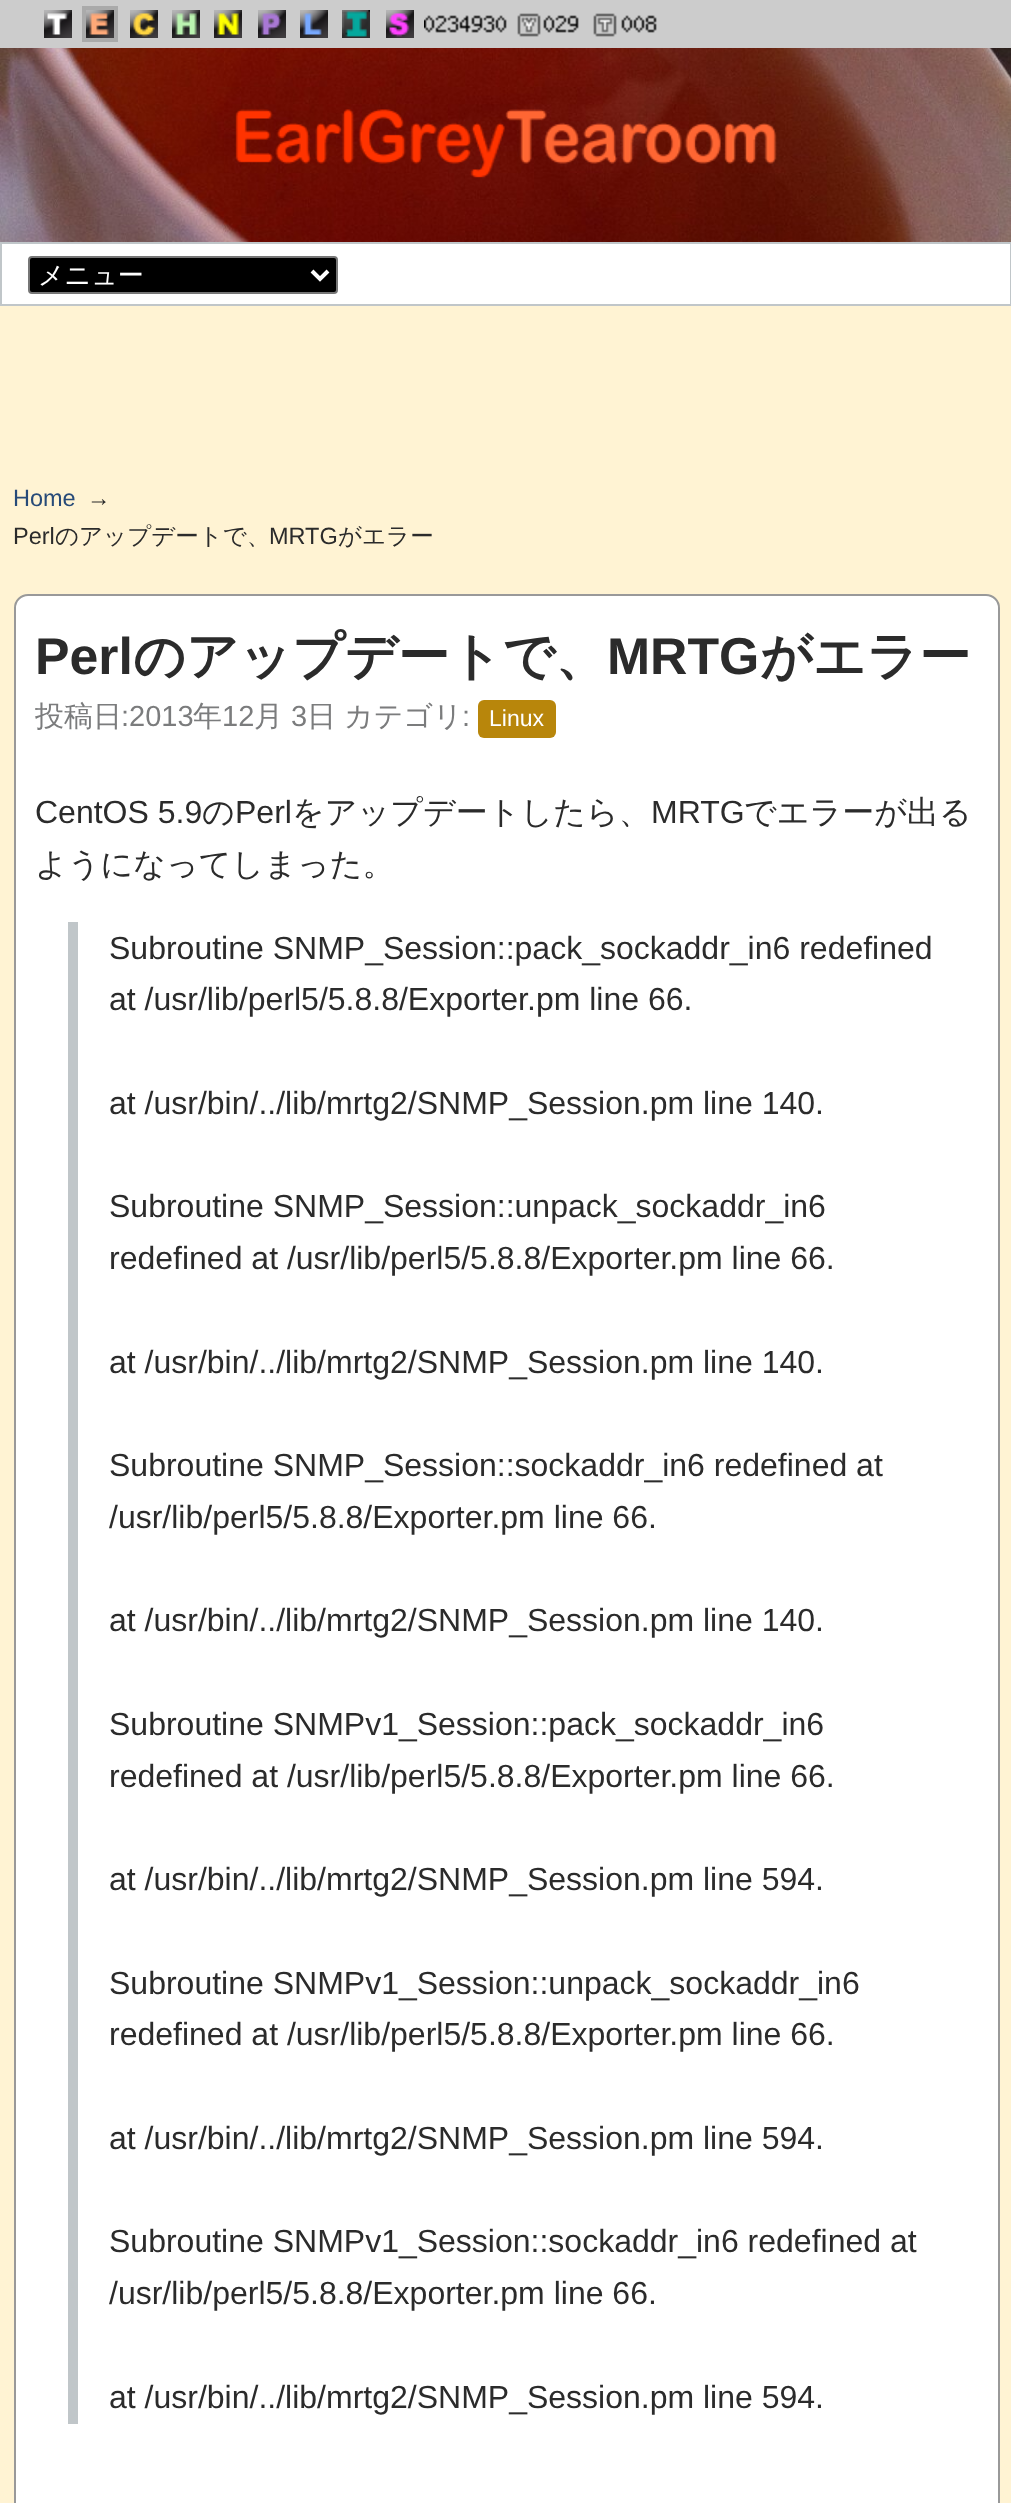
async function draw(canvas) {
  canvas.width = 1011;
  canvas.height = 2503;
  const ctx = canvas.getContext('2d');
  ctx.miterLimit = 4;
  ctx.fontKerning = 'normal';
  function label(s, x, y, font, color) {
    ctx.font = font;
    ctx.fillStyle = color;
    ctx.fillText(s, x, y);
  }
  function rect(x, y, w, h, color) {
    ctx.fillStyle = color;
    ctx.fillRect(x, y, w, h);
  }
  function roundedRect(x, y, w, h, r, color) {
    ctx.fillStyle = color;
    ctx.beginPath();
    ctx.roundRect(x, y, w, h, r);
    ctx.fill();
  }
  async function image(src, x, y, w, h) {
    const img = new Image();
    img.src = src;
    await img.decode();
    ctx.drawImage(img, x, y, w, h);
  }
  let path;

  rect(0, 0, 1011, 2503, '#fff3d3');
  rect(0, 0, 1011, 48, '#ccc');
  await image('assets/img1.png', 44, 10, 28, 28);
  rect(82, 6, 36, 36, '#aaa');
  await image('assets/img2.png', 86, 10, 28, 28);
  await image('assets/img3.png', 130, 10, 28, 28);
  await image('assets/img4.png', 172, 10, 28, 28);
  await image('assets/img5.png', 214, 10, 28, 28);
  await image('assets/img6.png', 258, 10, 28, 28);
  await image('assets/img7.png', 300, 10, 28, 28);
  await image('assets/img8.png', 342, 10, 28, 28);
  await image('assets/img9.png', 386, 10, 28, 28);
  await image('assets/img10.png', 424, 13, 233, 24);
  await image('assets/img11.png', 0, 48, 1011, 194);
  await image('assets/img12.png', 235, 109, 542, 69);
  ctx.fillStyle = '#fff';
  ctx.beginPath();
  ctx.rect(1, 243, 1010, 62);
  ctx.fill();
  ctx.strokeStyle = '#c0c6c9';
  ctx.lineWidth = 2;
  ctx.stroke();
  ctx.fillStyle = '#000';
  ctx.beginPath();
  ctx.roundRect(29, 257, 308, 36, 3);
  ctx.fill();
  ctx.strokeStyle = '#767676';
  ctx.stroke();
  path = new Path2D('M312 271L320 279L328 271');
  ctx.strokeStyle = '#fff';
  ctx.lineWidth = 4;
  ctx.stroke(path);
  label('メニュー', 38, 284, '500 26px WenQuanYi Zen Hei', '#fff');
  label('Home', 13, 506, '23.5px Liberation Sans', '#274a78');
  label('→', 87, 506, '23.5px Liberation Sans', '#2b2b2b');
  label('Perl', 13, 544, '23.5px Liberation Sans', '#2b2b2b');
  label('のアップデートで、', 55, 544, '500 23.5px WenQuanYi Zen Hei', '#2b2b2b');
  label('MRTG', 269, 544, '23.5px Liberation Sans', '#2b2b2b');
  label('がエラー', 338, 544, '500 23.5px WenQuanYi Zen Hei', '#2b2b2b');
  ctx.fillStyle = '#fff';
  ctx.beginPath();
  ctx.roundRect(15, 595, 984, 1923, 13);
  ctx.fill();
  ctx.strokeStyle = '#999';
  ctx.lineWidth = 2;
  ctx.stroke();
  label('Perl', 35, 674, 'bold 51.75px Liberation Sans', '#2b2b2b');
  label('のアップデートで、', 133, 674, 'bold 51.75px WenQuanYi Zen Hei', '#2b2b2b');
  label('MRTG', 607, 674, 'bold 51.75px Liberation Sans', '#2b2b2b');
  label('がエラー', 760, 674, 'bold 51.75px WenQuanYi Zen Hei', '#2b2b2b');
  label('投稿日', 35, 726, '500 29px WenQuanYi Zen Hei', '#7b7c7d');
  label(':2013', 121, 726, '29px Liberation Sans', '#7b7c7d');
  label('年', 193, 726, '500 29px WenQuanYi Zen Hei', '#7b7c7d');
  label('12', 222, 726, '29px Liberation Sans', '#7b7c7d');
  label('月', 254, 726, '500 29px WenQuanYi Zen Hei', '#7b7c7d');
  label('3', 291, 726, '29px Liberation Sans', '#7b7c7d');
  label('日', 307, 726, '500 29px WenQuanYi Zen Hei', '#7b7c7d');
  label('カテゴリ', 344, 726, '500 29px WenQuanYi Zen Hei', '#7b7c7d');
  label(':', 462, 726, '29px Liberation Sans', '#7b7c7d');
  roundedRect(478, 700, 78, 38, 6, '#b8860b');
  label('Linux', 489, 726, '23px Liberation Sans', '#fff');
  label('CentOS 5.9', 35, 823, '32px Liberation Sans', '#2b2b2b');
  label('の', 202, 823, '500 32px WenQuanYi Zen Hei', '#2b2b2b');
  label('Perl', 235, 823, '32px Liberation Sans', '#2b2b2b');
  label('をアップデートしたら、', 292, 823, '500 32px WenQuanYi Zen Hei', '#2b2b2b');
  label('MRTG', 651, 823, '32px Liberation Sans', '#2b2b2b');
  label('でエラーが出る', 744, 823, '500 32px WenQuanYi Zen Hei', '#2b2b2b');
  label('ようになってしまった。', 35, 875, '500 32px WenQuanYi Zen Hei', '#2b2b2b');
  rect(68, 922, 10, 1502, '#c0c6c9');
  label('Subroutine SNMP_Session::pack_sockaddr_in6 redefined', 109, 959, '32px Liberation Sans', '#2b2b2b');
  label('at /usr/lib/perl5/5.8.8/Exporter.pm line 66.', 109, 1010, '32px Liberation Sans', '#2b2b2b');
  label('at /usr/bin/../lib/mrtg2/SNMP_Session.pm line 140.', 109, 1114, '32px Liberation Sans', '#2b2b2b');
  label('Subroutine SNMP_Session::unpack_sockaddr_in6', 109, 1217, '32px Liberation Sans', '#2b2b2b');
  label('redefined at /usr/lib/perl5/5.8.8/Exporter.pm line 66.', 109, 1269, '32px Liberation Sans', '#2b2b2b');
  label('at /usr/bin/../lib/mrtg2/SNMP_Session.pm line 140.', 109, 1373, '32px Liberation Sans', '#2b2b2b');
  label('Subroutine SNMP_Session::sockaddr_in6 redefined at', 109, 1476, '32px Liberation Sans', '#2b2b2b');
  label('/usr/lib/perl5/5.8.8/Exporter.pm line 66.', 109, 1528, '32px Liberation Sans', '#2b2b2b');
  label('at /usr/bin/../lib/mrtg2/SNMP_Session.pm line 140.', 109, 1631, '32px Liberation Sans', '#2b2b2b');
  label('Subroutine SNMPv1_Session::pack_sockaddr_in6', 109, 1735, '32px Liberation Sans', '#2b2b2b');
  label('redefined at /usr/lib/perl5/5.8.8/Exporter.pm line 66.', 109, 1787, '32px Liberation Sans', '#2b2b2b');
  label('at /usr/bin/../lib/mrtg2/SNMP_Session.pm line 594.', 109, 1890, '32px Liberation Sans', '#2b2b2b');
  label('Subroutine SNMPv1_Session::unpack_sockaddr_in6', 109, 1994, '32px Liberation Sans', '#2b2b2b');
  label('redefined at /usr/lib/perl5/5.8.8/Exporter.pm line 66.', 109, 2045, '32px Liberation Sans', '#2b2b2b');
  label('at /usr/bin/../lib/mrtg2/SNMP_Session.pm line 594.', 109, 2149, '32px Liberation Sans', '#2b2b2b');
  label('Subroutine SNMPv1_Session::sockaddr_in6 redefined at', 109, 2252, '32px Liberation Sans', '#2b2b2b');
  label('/usr/lib/perl5/5.8.8/Exporter.pm line 66.', 109, 2304, '32px Liberation Sans', '#2b2b2b');
  label('at /usr/bin/../lib/mrtg2/SNMP_Session.pm line 594.', 109, 2408, '32px Liberation Sans', '#2b2b2b');
}

draw(document.querySelector('canvas'));
